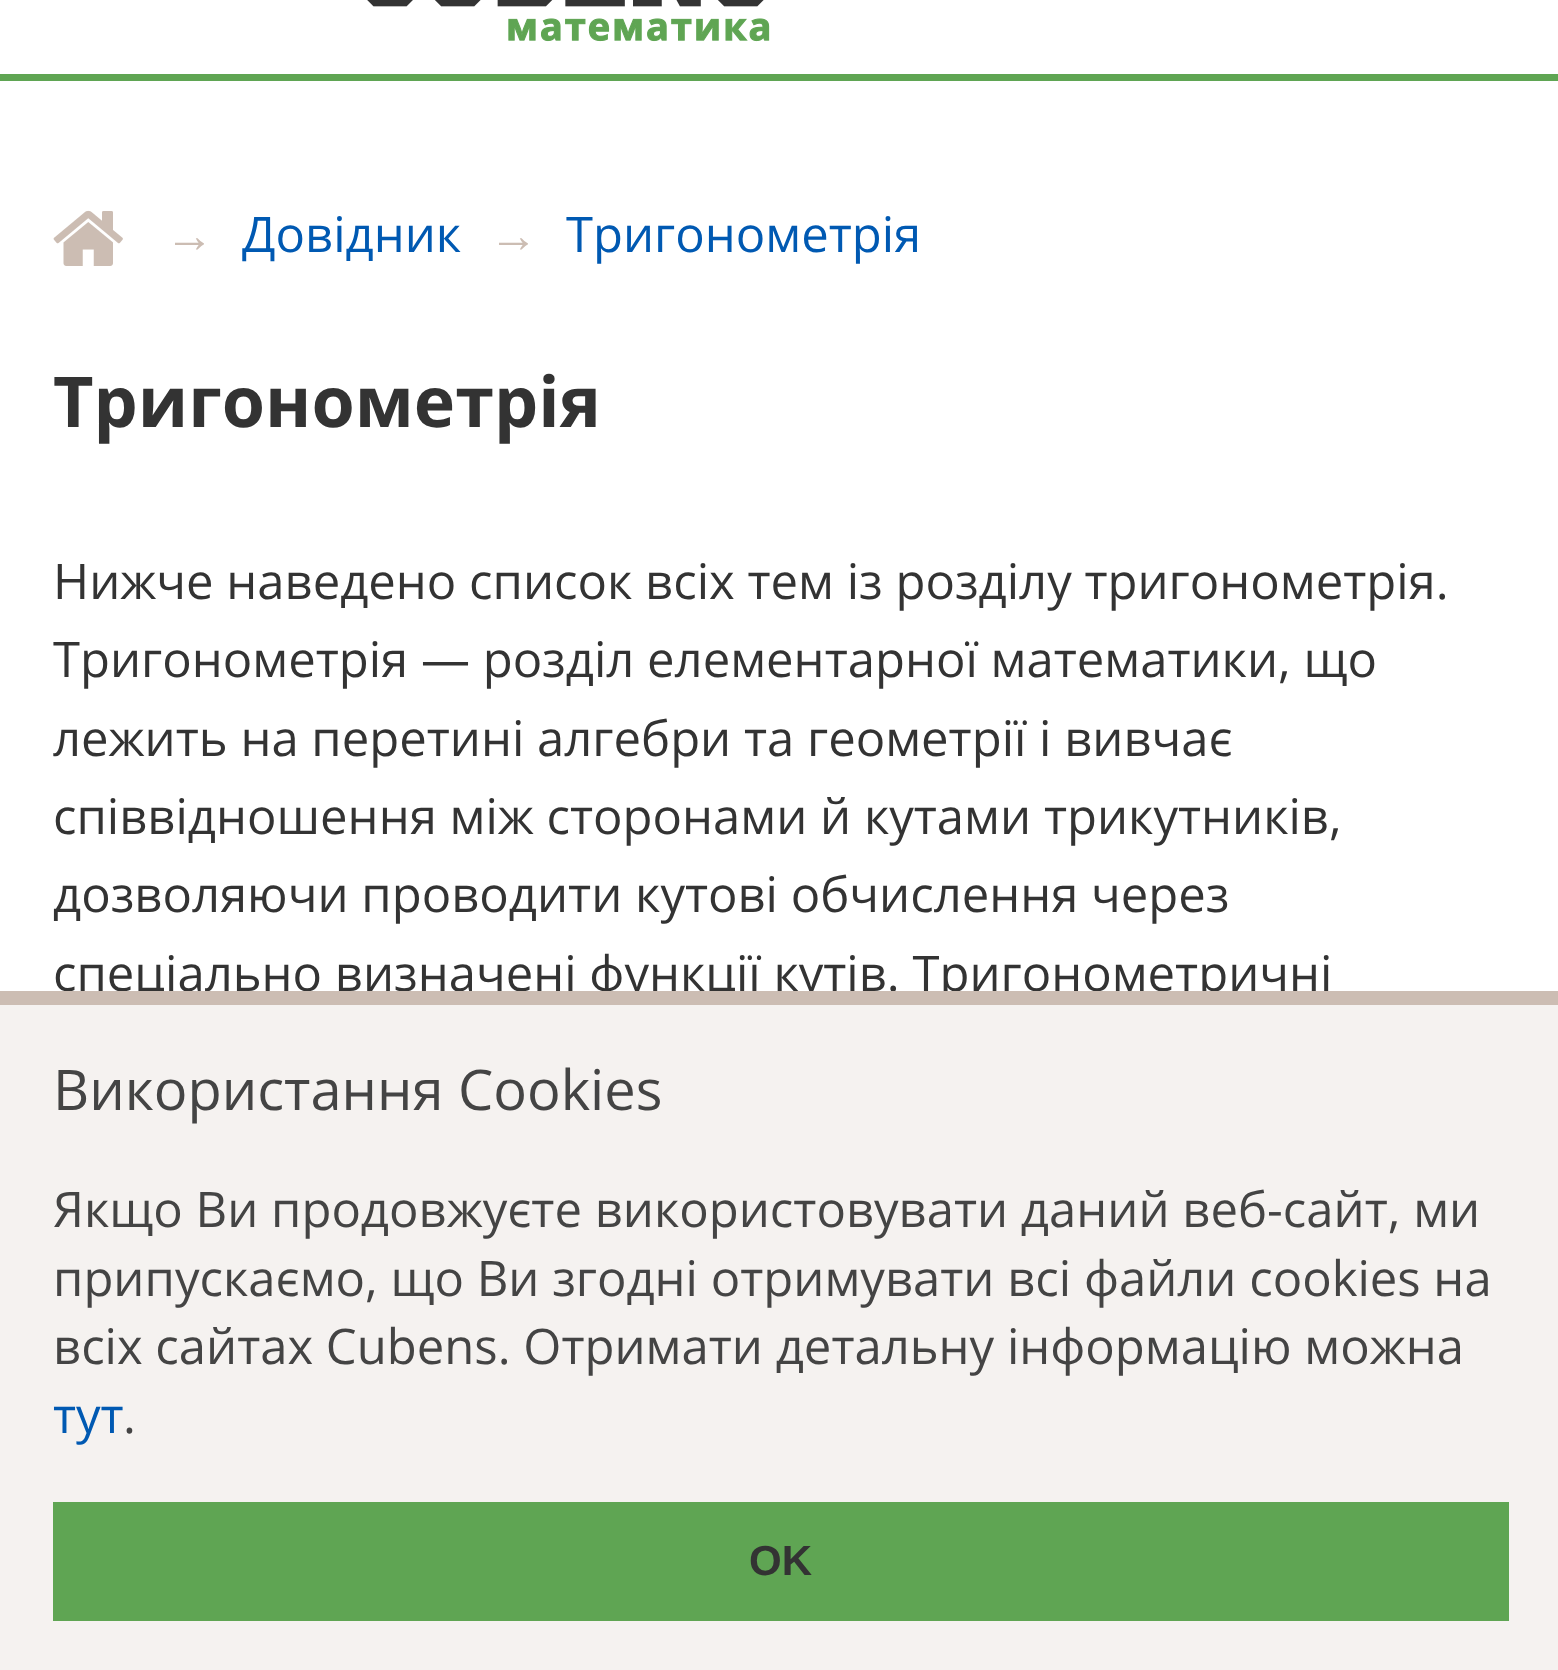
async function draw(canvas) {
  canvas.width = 1558;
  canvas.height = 1670;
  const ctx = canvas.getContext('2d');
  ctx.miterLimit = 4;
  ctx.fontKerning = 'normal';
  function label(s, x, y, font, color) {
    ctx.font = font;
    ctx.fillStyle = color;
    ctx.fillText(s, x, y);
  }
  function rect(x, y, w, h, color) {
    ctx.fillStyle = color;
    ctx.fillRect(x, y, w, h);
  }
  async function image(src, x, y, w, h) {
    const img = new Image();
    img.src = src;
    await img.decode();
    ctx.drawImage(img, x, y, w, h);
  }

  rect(0, 0, 1558, 1670, '#fff');
  rect(0, 74, 1558, 7, '#5fa553');
  await image('assets/img1.png', 367, 0, 403, 42);
  await image('assets/img2.png', 53, 210, 70, 56);
  label('→', 165, 252, '49px Liberation Sans', '#ccbdb3');
  label('Довідник', 242, 252, '49px Open Sans', '#0059b2');
  label('→', 489, 252, '49px Liberation Sans', '#ccbdb3');
  label('Тригонометрія', 566, 252, '49px Open Sans', '#0059b2');
  label('Тригонометрія', 53, 427, 'bold 70px Open Sans', '#333');
  label('Нижче наведено список всіх тем із розділу тригонометрія.', 53, 599, '49px Open Sans', '#333');
  label('Тригонометрія — розділ елементарної математики, що', 53, 677, '49px Open Sans', '#333');
  label('лежить на перетині алгебри та геометрії і вивчає', 53, 756, '49px Open Sans', '#333');
  label('співвідношення між сторонами й кутами трикутників,', 53, 834, '49px Open Sans', '#333');
  label('дозволяючи проводити кутові обчислення через', 53, 912, '49px Open Sans', '#333');
  label('спеціально визначені функції кутів. Тригонометричні', 53, 991, '49px Open Sans', '#333');
  rect(0, 1005, 1558, 665, '#f5f2f0');
  rect(0, 991, 1558, 14, '#ccbdb3');
  label('Використання Cookies', 53, 1110, '56px Open Sans', '#444');
  label('Якщо Ви продовжуєте використовувати даний веб-сайт, ми', 53, 1227, '49px Open Sans', '#444');
  label('припускаємо, що Ви згодні отримувати всі файли cookies на', 53, 1296, '49px Open Sans', '#444');
  label('всіх сайтах Cubens. Отримати детальну інформацію можна', 53, 1364, '49px Open Sans', '#444');
  label('тут', 53, 1433, '49px Open Sans', '#0059b2');
  label('.', 123, 1433, '49px Open Sans', '#444');
  rect(53, 1502, 1456, 119, '#5fa553');
  label('OK', 749, 1575, 'bold 42px Liberation Sans', '#333');
}

draw(document.querySelector('canvas'));
